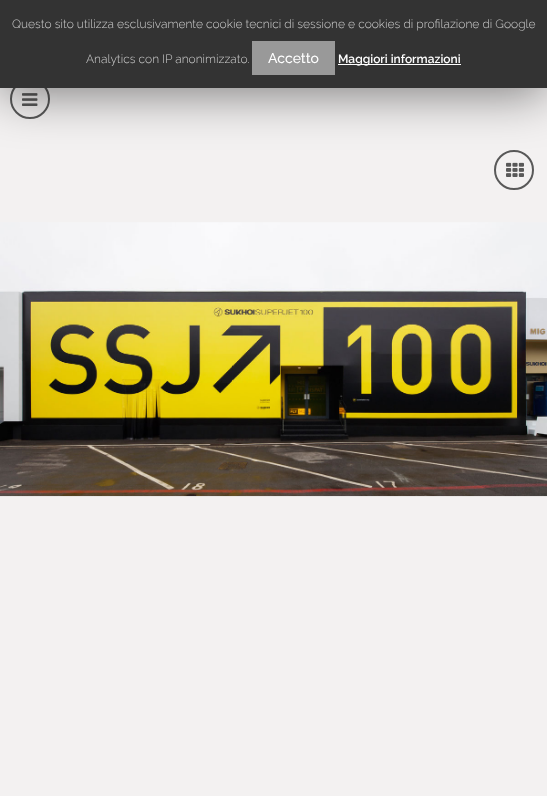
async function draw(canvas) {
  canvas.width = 547;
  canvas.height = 796;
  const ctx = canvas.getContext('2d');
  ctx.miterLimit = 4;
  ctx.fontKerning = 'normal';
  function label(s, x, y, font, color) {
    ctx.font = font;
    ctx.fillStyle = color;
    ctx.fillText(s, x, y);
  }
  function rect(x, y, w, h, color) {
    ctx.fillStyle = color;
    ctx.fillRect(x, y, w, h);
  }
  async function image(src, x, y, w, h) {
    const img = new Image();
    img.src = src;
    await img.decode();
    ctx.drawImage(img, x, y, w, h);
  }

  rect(0, 0, 547, 796, '#f3f1f1');
  ctx.beginPath();
  ctx.arc(30, 99, 19, 0, 2 * Math.PI);
  ctx.strokeStyle = '#595959';
  ctx.lineWidth = 2;
  ctx.stroke();
  await image('assets/img1.png', 22, 93, 16, 13);
  ctx.beginPath();
  ctx.arc(514, 170, 19, 0, 2 * Math.PI);
  ctx.stroke();
  await image('assets/img2.png', 506, 162, 18, 15);
  ctx.fillStyle = '#00000080';
  ctx.filter = 'blur(25px)';
  ctx.beginPath();
  ctx.rect(0, 5, 547, 88);
  ctx.fill();
  ctx.filter = 'none';
  rect(0, 0, 547, 88, '#333');
  label('Questo sito utilizza esclusivamente cookie tecnici di sessione e cookies di profilazione di Google', 12, 28, '300 12px Raleway', '#ccc');
  label('Analytics con IP anonimizzato.', 86, 63, '300 12px Raleway', '#ccc');
  rect(252, 41, 83, 34, '#999');
  label('Accetto', 268, 63, '500 14px Raleway', '#fff');
  rect(338, 64, 123, 1, '#fff');
  label('Maggiori informazioni', 338, 63, '600 12px Raleway', '#fff');
  await image('assets/img3.png', 0, 222, 547, 275);
}

draw(document.querySelector('canvas'));
